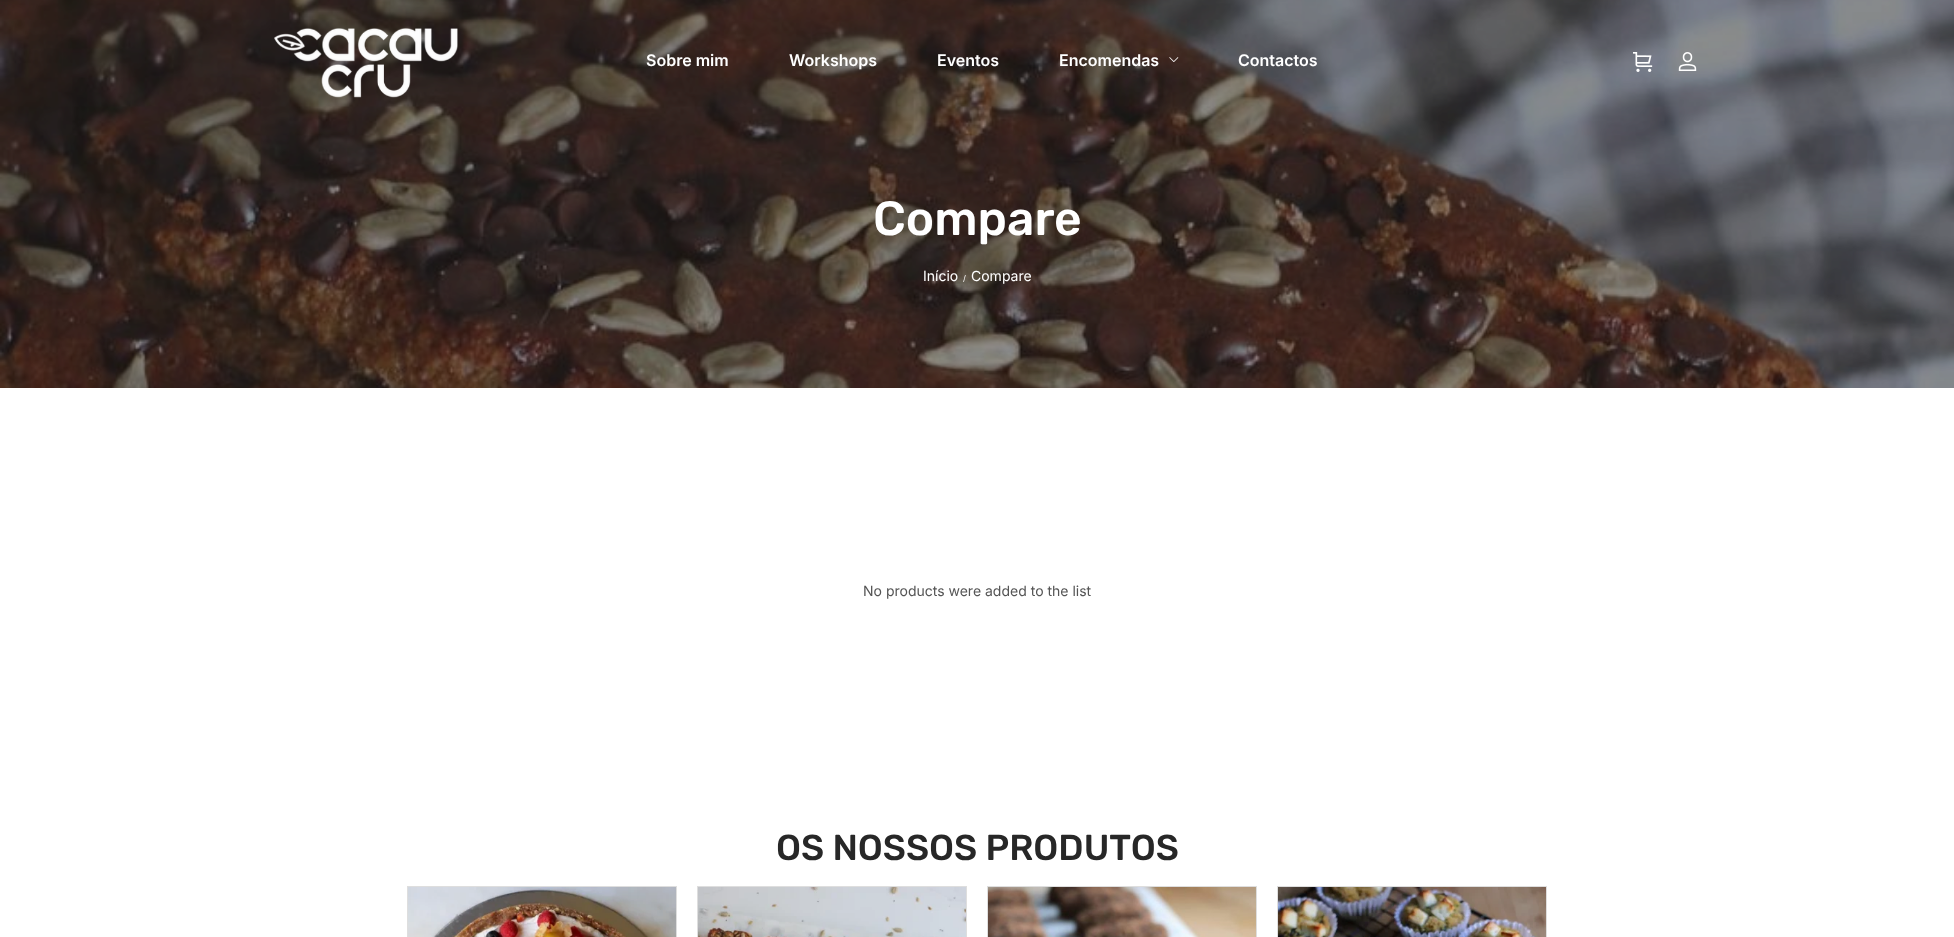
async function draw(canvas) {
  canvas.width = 1954;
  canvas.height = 937;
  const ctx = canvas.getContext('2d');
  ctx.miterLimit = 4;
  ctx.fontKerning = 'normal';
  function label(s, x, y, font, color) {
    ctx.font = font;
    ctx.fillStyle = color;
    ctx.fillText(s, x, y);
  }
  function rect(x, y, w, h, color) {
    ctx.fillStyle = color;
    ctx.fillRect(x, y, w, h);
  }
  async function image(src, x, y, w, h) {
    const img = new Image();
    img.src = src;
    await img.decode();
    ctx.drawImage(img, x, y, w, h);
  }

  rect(0, 0, 1954, 937, '#fff');
  await image('assets/img5.png', 0, 0, 1954, 388);
  await image('assets/img1.png', 274, 28, 184, 70);
  label('Sobre mim', 646, 66, '600 16px Inter', '#fff');
  label('Workshops', 789, 66, '600 16px Inter', '#fff');
  label('Eventos', 937, 66, '600 16px Inter', '#fff');
  label('Encomendas', 1059, 66, '600 16px Inter', '#fff');
  await image('assets/img2.png', 1169, 57, 10, 5);
  label('Contactos', 1238, 66, '600 16px Inter', '#fff');
  await image('assets/img3.png', 1633, 52, 20, 20);
  await image('assets/img4.png', 1678, 52, 19, 19);
  label('Compare', 873, 235, '500 48px Rubik', '#fff');
  label('Início', 923, 281, '14px Inter', '#fff');
  label('/', 963, 281, '8px Inter', '#fff');
  label('Compare', 971, 281, '14px Inter', '#fff');
  label('No products were added to the list', 863, 596, '14px Inter', '#555');
  label('OS NOSSOS PRODUTOS', 776, 860, '500 36px Rubik', '#272727');
  ctx.strokeStyle = '#dedede';
  ctx.strokeRect(407.5, 886.5, 269, 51);
  await image('assets/img6.png', 408, 887, 268, 50);
  ctx.strokeRect(697.5, 886.5, 269, 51);
  await image('assets/img7.png', 698, 887, 268, 50);
  ctx.strokeRect(987.5, 886.5, 269, 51);
  await image('assets/img8.png', 988, 887, 268, 50);
  ctx.strokeRect(1277.5, 886.5, 269, 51);
  await image('assets/img9.png', 1278, 887, 268, 50);
}

draw(document.querySelector('canvas'));
